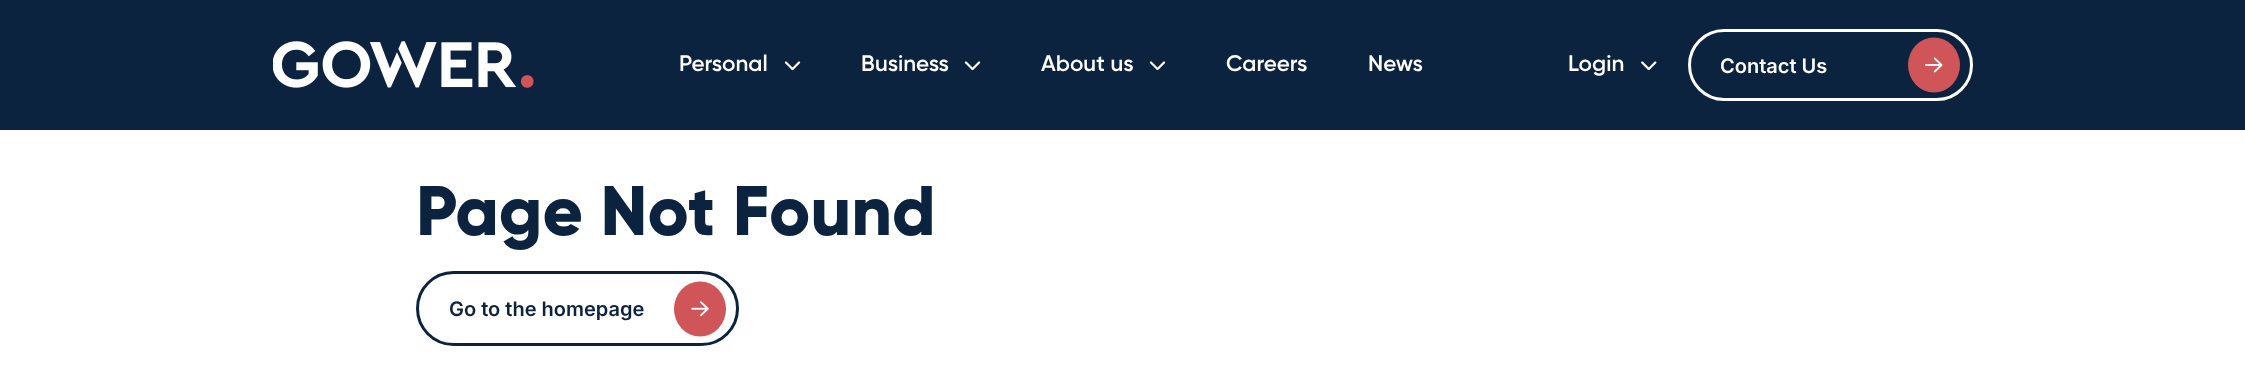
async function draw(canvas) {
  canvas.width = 2245;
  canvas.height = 368;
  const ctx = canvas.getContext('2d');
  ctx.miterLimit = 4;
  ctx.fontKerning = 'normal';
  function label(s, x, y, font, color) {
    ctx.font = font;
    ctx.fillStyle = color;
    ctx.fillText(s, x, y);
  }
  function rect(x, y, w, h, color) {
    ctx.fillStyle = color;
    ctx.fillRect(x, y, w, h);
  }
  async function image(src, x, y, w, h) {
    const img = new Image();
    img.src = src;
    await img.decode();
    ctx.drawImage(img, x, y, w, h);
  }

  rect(0, 0, 2245, 368, '#fff');
  rect(0, 0, 2245, 130, '#0c2340');
  await image('assets/img1.png', 273, 41, 261, 47);
  label('Personal', 679, 71, '600 22.5px Gilroy', '#fff');
  await image('assets/img2.png', 784, 61, 17, 10);
  label('Business', 861, 71, '600 22.5px Gilroy', '#fff');
  await image('assets/img2.png', 964, 61, 17, 10);
  label('About us', 1041, 71, '600 22.5px Gilroy', '#fff');
  await image('assets/img2.png', 1149, 61, 17, 10);
  label('Careers', 1226, 71, '600 22.5px Gilroy', '#fff');
  label('News', 1368, 71, '600 22.5px Gilroy', '#fff');
  label('Login', 1568, 71, '600 22.5px Gilroy', '#fff');
  await image('assets/img3.png', 1641, 61, 16, 10);
  ctx.beginPath();
  ctx.roundRect(1689.5, 30.5, 282, 69, 34.5);
  ctx.strokeStyle = '#fff';
  ctx.lineWidth = 3;
  ctx.stroke();
  label('Contact Us', 1720, 73, '600 20px Inter', '#fff');
  ctx.fillStyle = '#d05559';
  ctx.beginPath();
  ctx.ellipse(1934, 65, 26, 27.5, 0, 0, 2 * Math.PI);
  ctx.fill();
  await image('assets/img4.png', 1925, 57, 18, 16);
  label('Page Not Found', 416, 235, '800 70px Gilroy', '#0c2340');
  ctx.beginPath();
  ctx.roundRect(417.5, 272.5, 320, 72, 36);
  ctx.strokeStyle = '#0c2340';
  ctx.stroke();
  label('Go to the homepage', 449, 316, '600 20px Inter', '#0c2340');
  ctx.fillStyle = '#d05559';
  ctx.beginPath();
  ctx.ellipse(700, 309, 26, 27.5, 0, 0, 2 * Math.PI);
  ctx.fill();
  await image('assets/img5.png', 691, 301, 18, 16);
}

draw(document.querySelector('canvas'));
